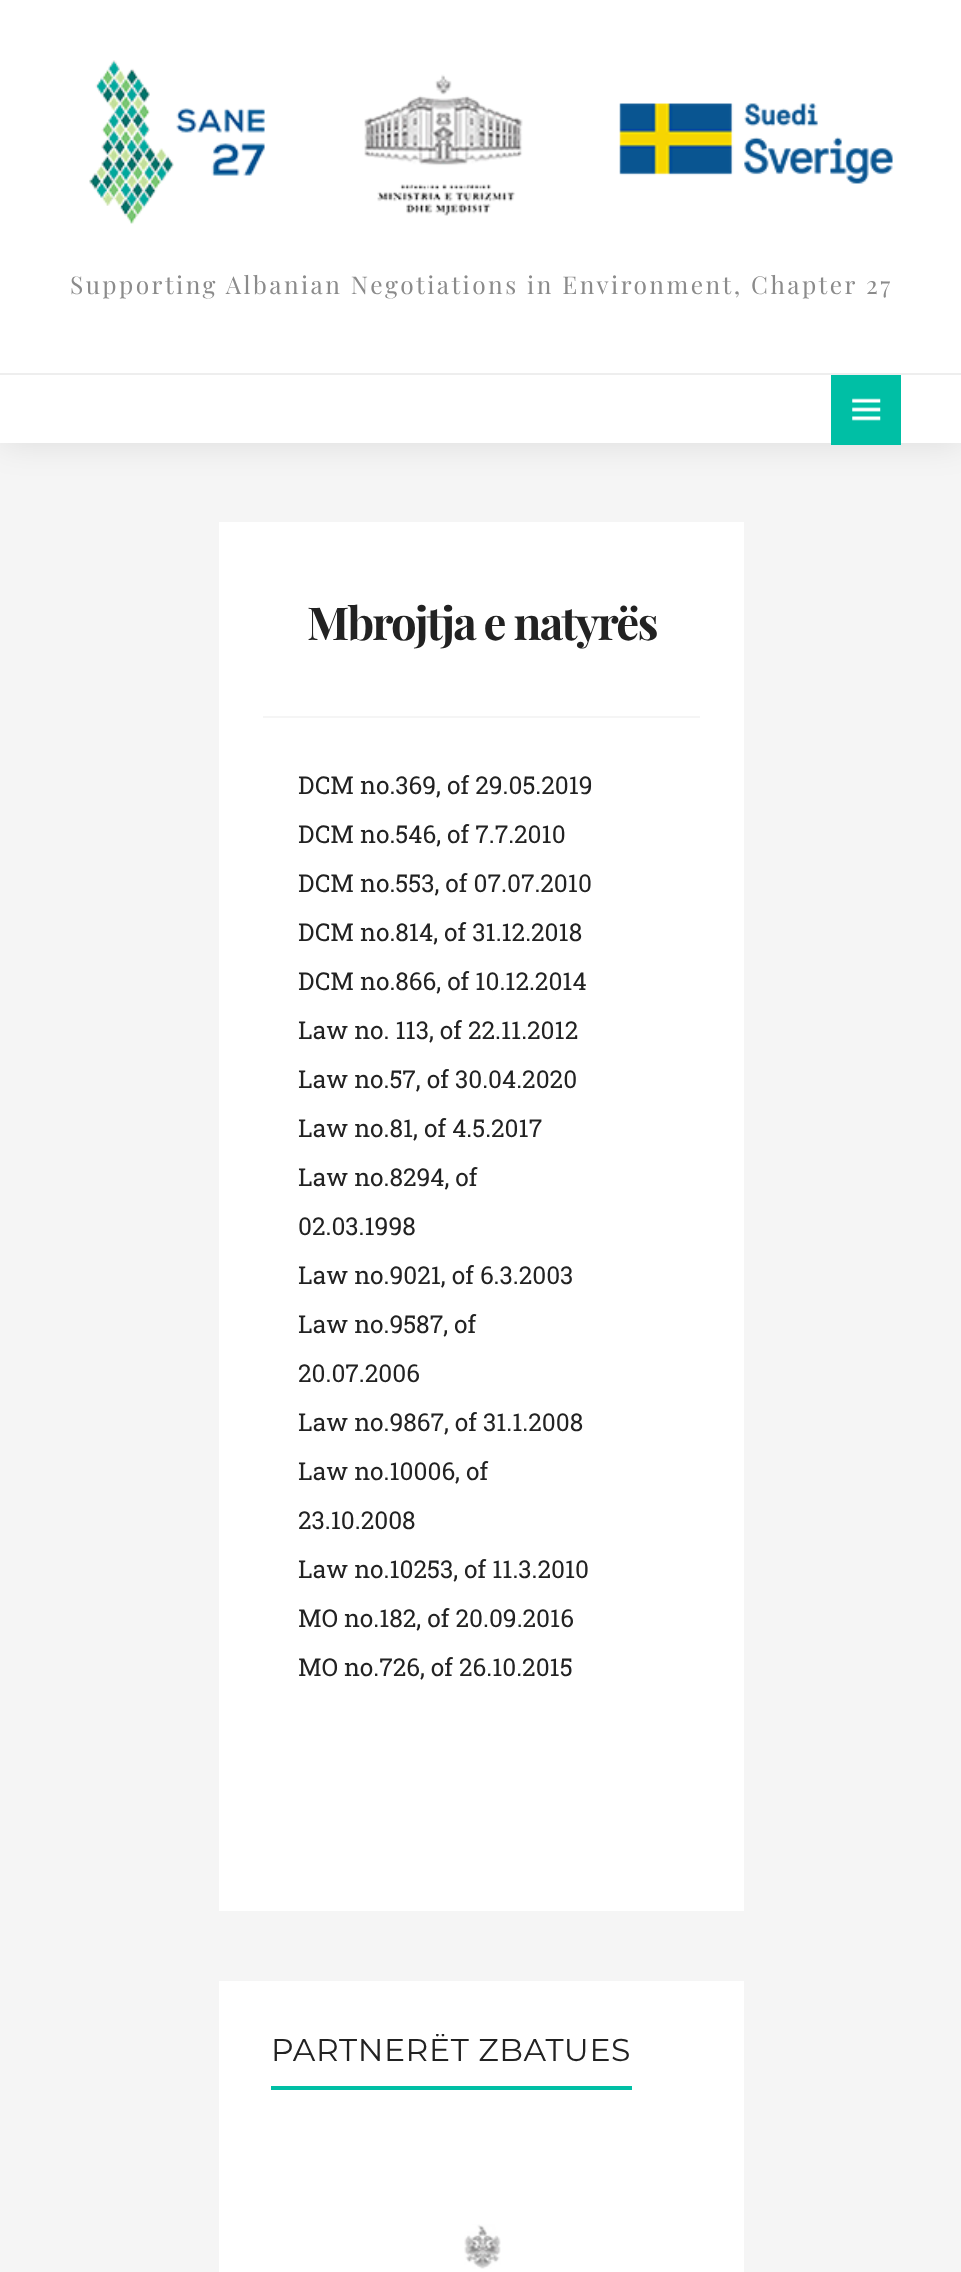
async function draw(canvas) {
  canvas.width = 961;
  canvas.height = 2272;
  const ctx = canvas.getContext('2d');
  ctx.miterLimit = 4;
  ctx.fontKerning = 'normal';
  function label(s, x, y, font, color) {
    ctx.font = font;
    ctx.fillStyle = color;
    ctx.fillText(s, x, y);
  }
  function rect(x, y, w, h, color) {
    ctx.fillStyle = color;
    ctx.fillRect(x, y, w, h);
  }
  async function image(src, x, y, w, h) {
    const img = new Image();
    img.src = src;
    await img.decode();
    ctx.drawImage(img, x, y, w, h);
  }

  rect(0, 0, 961, 2272, '#f5f5f5');
  ctx.fillStyle = '#0000001a';
  ctx.filter = 'blur(17.5px)';
  ctx.beginPath();
  ctx.rect(0, 0, 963, 443);
  ctx.fill();
  ctx.filter = 'none';
  rect(0, 0, 961, 443, '#fff');
  await image('assets/img1.png', 89, 60, 804, 164);
  ctx.letterSpacing = '2.45px';
  label('Supporting Albanian Negotiations in Environment, Chapter 27', 70, 294, '24.5px Playfair Display', '#8b8b8b');
  rect(0, 373, 961, 2, '#eee');
  rect(831, 375, 70, 70, '#00bfa5');
  await image('assets/img2.png', 852, 398, 29, 23);
  rect(219, 522, 525, 1389, '#fff');
  ctx.letterSpacing = '-1.8px';
  label('Mbrojtja e natyrës', 307, 640, 'bold 45.5px Playfair Display', '#222');
  rect(263, 716, 437, 2, '#f5f5f5');
  ctx.letterSpacing = '0px';
  label('DCM no.369, of 29.05.2019', 298, 794, '24.5px Roboto Slab', '#222');
  label('DCM no.546, of 7.7.2010', 298, 843, '24.5px Roboto Slab', '#222');
  label('DCM no.553, of 07.07.2010', 298, 892, '24.5px Roboto Slab', '#222');
  label('DCM no.814, of 31.12.2018', 298, 941, '24.5px Roboto Slab', '#222');
  label('DCM no.866, of 10.12.2014', 298, 990, '24.5px Roboto Slab', '#222');
  label('Law no. 113, of 22.11.2012', 298, 1039, '24.5px Roboto Slab', '#222');
  label('Law no.57, of 30.04.2020', 298, 1088, '24.5px Roboto Slab', '#222');
  label('Law no.81, of 4.5.2017', 298, 1137, '24.5px Roboto Slab', '#222');
  label('Law no.8294, of', 298, 1186, '24.5px Roboto Slab', '#222');
  label('02.03.1998', 298, 1235, '24.5px Roboto Slab', '#222');
  label('Law no.9021, of 6.3.2003', 298, 1284, '24.5px Roboto Slab', '#222');
  label('Law no.9587, of', 298, 1333, '24.5px Roboto Slab', '#222');
  label('20.07.2006', 298, 1382, '24.5px Roboto Slab', '#222');
  label('Law no.9867, of 31.1.2008', 298, 1431, '24.5px Roboto Slab', '#222');
  label('Law no.10006, of', 298, 1480, '24.5px Roboto Slab', '#222');
  label('23.10.2008', 298, 1529, '24.5px Roboto Slab', '#222');
  label('Law no.10253, of 11.3.2010', 298, 1578, '24.5px Roboto Slab', '#222');
  label('MO no.182, of 20.09.2016', 298, 1627, '24.5px Roboto Slab', '#222');
  label('MO no.726, of 26.10.2015', 298, 1676, '24.5px Roboto Slab', '#222');
  rect(219, 1981, 525, 291, '#fff');
  rect(271, 2086, 361, 4, '#00bfa5');
  ctx.save();
  ctx.beginPath();
  ctx.rect(271, 2034, 420, 56);
  ctx.clip();
  ctx.letterSpacing = '0.6px';
  label('PARTNERËT ZBATUES', 271, 2061, '31.5px Montserrat', '#222');
  ctx.restore();
  await image('assets/img3.png', 464, 2224, 37, 45);
}

draw(document.querySelector('canvas'));
